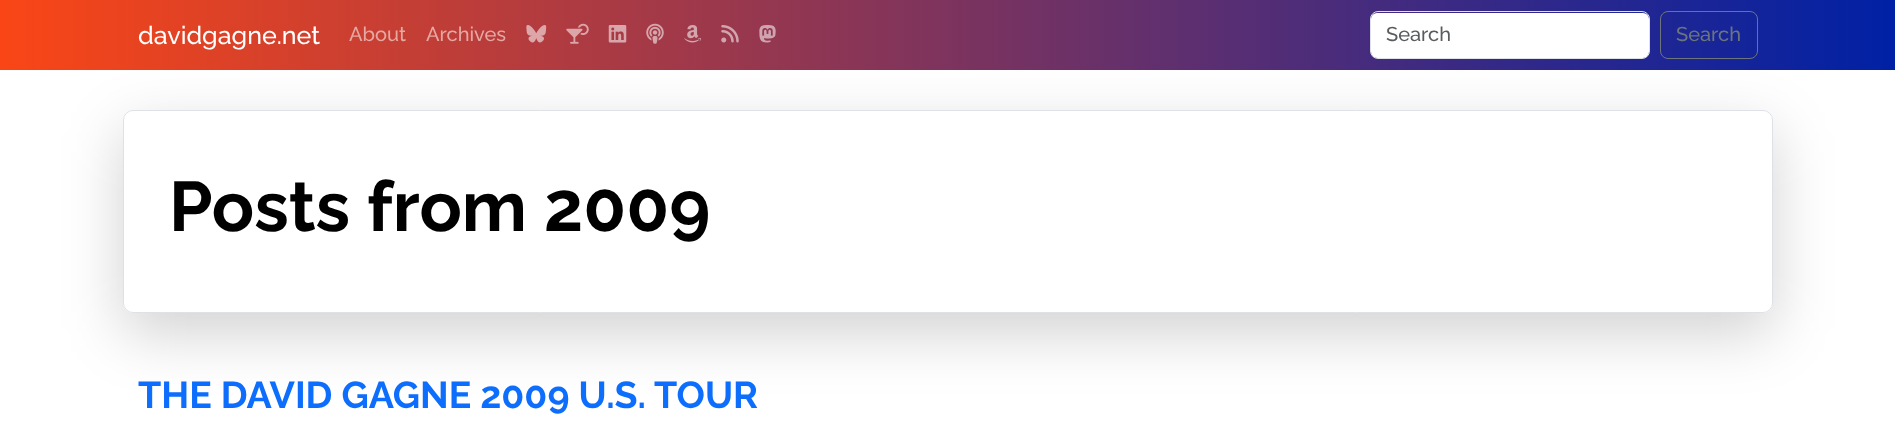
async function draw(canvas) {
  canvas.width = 1895;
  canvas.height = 445;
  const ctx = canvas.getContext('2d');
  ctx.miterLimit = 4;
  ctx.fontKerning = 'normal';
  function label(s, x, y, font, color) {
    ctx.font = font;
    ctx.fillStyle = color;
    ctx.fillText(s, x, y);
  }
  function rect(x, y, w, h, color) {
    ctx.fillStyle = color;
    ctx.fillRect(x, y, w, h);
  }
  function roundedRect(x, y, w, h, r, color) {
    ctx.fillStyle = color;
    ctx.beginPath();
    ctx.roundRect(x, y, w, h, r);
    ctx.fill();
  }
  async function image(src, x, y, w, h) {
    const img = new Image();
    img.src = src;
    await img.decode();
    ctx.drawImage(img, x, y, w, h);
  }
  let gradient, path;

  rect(0, 0, 1895, 445, '#fff');
  ctx.save();
  path = new Path2D('M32 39H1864V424H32ZM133 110H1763C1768.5 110 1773 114.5 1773 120V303C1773 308.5 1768.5 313 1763 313H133C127.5 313 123 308.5 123 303V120C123 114.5 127.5 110 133 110Z');
  ctx.clip(path, 'evenodd');
  ctx.fillStyle = '#0000002e';
  ctx.filter = 'blur(30px)';
  ctx.beginPath();
  ctx.roundRect(123, 130, 1650, 203, 10);
  ctx.fill();
  ctx.filter = 'none';
  ctx.restore();
  gradient = ctx.createLinearGradient(0, 35, 1895, 35);
  gradient.addColorStop(0, '#fa4616');
  gradient.addColorStop(1, '#0021a5');
  ctx.fillStyle = gradient;
  ctx.fillRect(0, 0, 1895, 70);
  label('davidgagne.net', 138, 44, '500 25px Raleway', '#fff');
  label('About', 349, 41, '500 20px Raleway', '#e6a8a3');
  label('Archives', 426, 41, '500 20px Raleway', '#e6a8a3');
  await image('assets/img1.png', 526, 25, 21, 18);
  await image('assets/img2.png', 566, 23, 23, 21);
  await image('assets/img3.png', 608, 25, 19, 18);
  await image('assets/img4.png', 646, 23, 18, 21);
  await image('assets/img5.png', 684, 25, 17, 18);
  await image('assets/img6.png', 721, 25, 18, 18);
  await image('assets/img7.png', 759, 25, 17, 18);
  roundedRect(1371, 13, 278, 45, 6, '#fff');
  ctx.beginPath();
  ctx.roundRect(1370.5, 11.5, 279, 47, 7.5);
  ctx.strokeStyle = '#dee2e6';
  ctx.stroke();
  label('Search', 1386, 41, '500 20px Raleway', '#595c5f');
  ctx.beginPath();
  ctx.roundRect(1660.5, 11.5, 97, 47, 7.5);
  ctx.strokeStyle = '#6c757d';
  ctx.stroke();
  label('Search', 1676, 41, '500 20px Raleway', '#6c757d');
  ctx.beginPath();
  ctx.roundRect(123.5, 110.5, 1649, 202, 9.5);
  ctx.strokeStyle = '#dee2e6';
  ctx.stroke();
  label('Posts from 2009', 169, 231, 'bold 70px Raleway', '#000');
  label('THE DAVID GAGNE 2009 U.S. TOUR', 138, 408, 'bold 37.5px Raleway', '#0d6efd');
}

draw(document.querySelector('canvas'));
